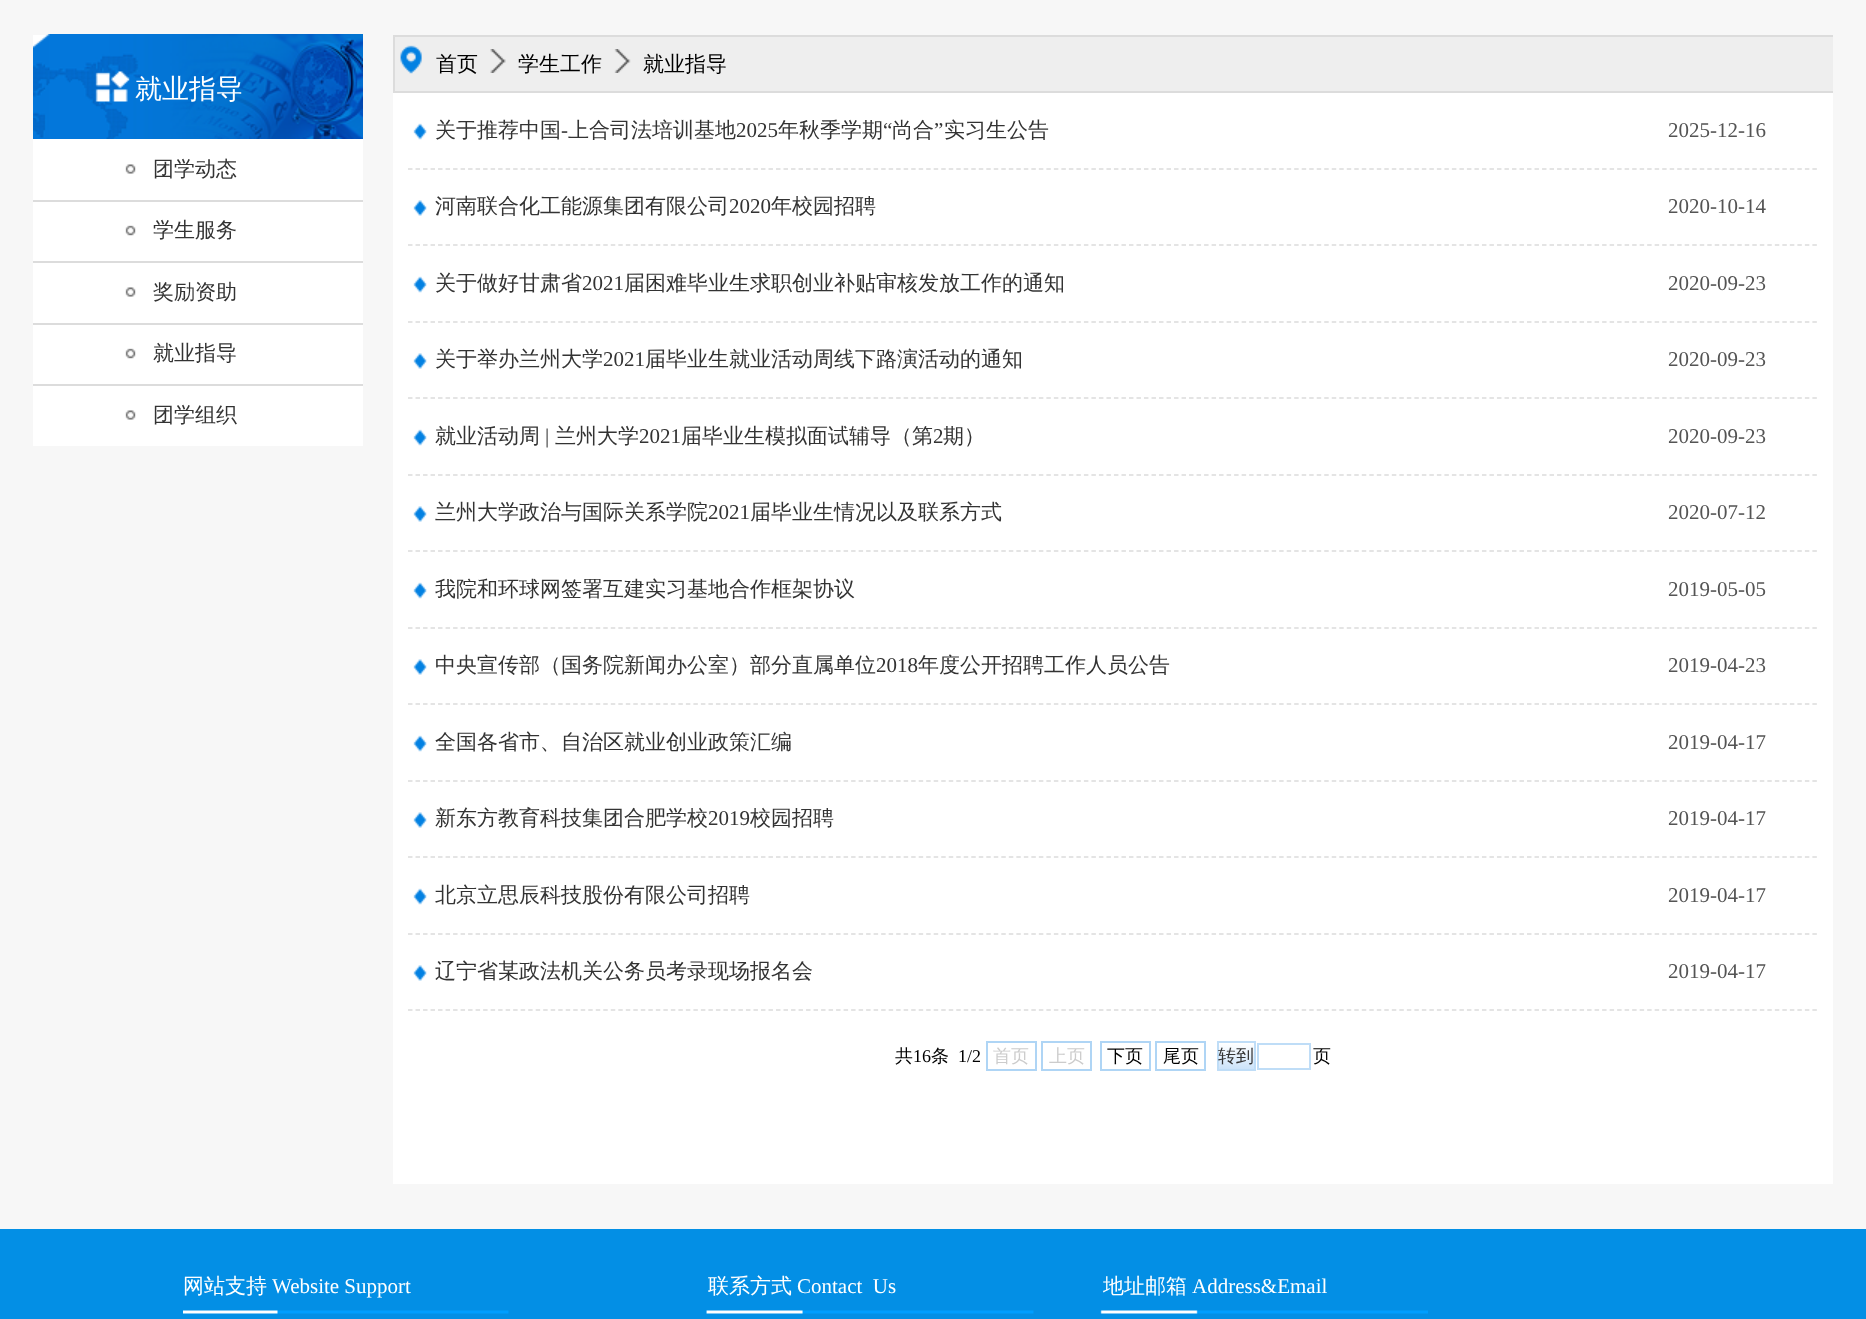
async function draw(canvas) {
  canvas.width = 1866;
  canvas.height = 1319;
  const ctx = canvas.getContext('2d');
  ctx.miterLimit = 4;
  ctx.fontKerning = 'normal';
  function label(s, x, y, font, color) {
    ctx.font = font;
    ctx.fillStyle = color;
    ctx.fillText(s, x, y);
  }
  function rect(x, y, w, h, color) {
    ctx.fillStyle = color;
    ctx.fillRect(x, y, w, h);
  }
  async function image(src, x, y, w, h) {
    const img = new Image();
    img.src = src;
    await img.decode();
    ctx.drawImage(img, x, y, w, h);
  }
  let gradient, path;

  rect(0, 0, 1866, 1319, '#f7f7f7');
  rect(33, 35, 330, 411, '#fff');
  await image('assets/img1.png', 33, 34, 330, 105);
  await image('assets/img2.png', 95, 71, 35, 31);
  label('就业指导', 135, 98, '500 27px WenQuanYi Zen Hei', '#fff');
  rect(33, 200, 330, 2, '#dcdcdc');
  await image('assets/img3.png', 125, 164, 11, 10);
  label('团学动态', 153, 176, '500 21px WenQuanYi Zen Hei', '#333');
  rect(33, 261, 330, 2, '#dcdcdc');
  await image('assets/img4.png', 125, 225, 11, 11);
  label('学生服务', 153, 237, '500 21px WenQuanYi Zen Hei', '#333');
  rect(33, 323, 330, 2, '#dcdcdc');
  await image('assets/img3.png', 125, 287, 11, 10);
  label('奖励资助', 153, 299, '500 21px WenQuanYi Zen Hei', '#333');
  rect(33, 384, 330, 2, '#dcdcdc');
  await image('assets/img4.png', 125, 348, 11, 11);
  label('就业指导', 153, 360, '500 21px WenQuanYi Zen Hei', '#333');
  await image('assets/img3.png', 125, 410, 11, 10);
  label('团学组织', 153, 422, '500 21px WenQuanYi Zen Hei', '#333');
  rect(393, 93, 1440, 1091, '#fff');
  rect(395, 37, 1438, 54, '#eee');
  ctx.save();
  ctx.beginPath();
  ctx.rect(393, 35, 1440, 1149);
  ctx.clip();
  ctx.strokeStyle = '#dcdcdc';
  ctx.lineWidth = 2;
  ctx.strokeRect(394, 36, 1441, 56);
  ctx.restore();
  await image('assets/img5.png', 400, 45, 22, 29);
  label('首页', 436, 71, '500 21px WenQuanYi Zen Hei', '#000');
  await image('assets/img6.png', 490, 49, 16, 24);
  label('学生工作', 518, 71, '500 21px WenQuanYi Zen Hei', '#000');
  await image('assets/img7.png', 614, 49, 17, 24);
  label('就业指导', 643, 71, '500 21px WenQuanYi Zen Hei', '#000');
  path = new Path2D('M408 169H1818');
  ctx.strokeStyle = '#dcdcdc';
  ctx.lineWidth = 1.5;
  ctx.setLineDash([4.5, 3.01]);
  ctx.stroke(path);
  await image('assets/img8.png', 413, 123, 14, 17);
  label('关于推荐中国', 435, 137, '500 21px WenQuanYi Zen Hei', '#333');
  label('上合司法培训基地', 568, 137, '500 21px WenQuanYi Zen Hei', '#333');
  label('2025', 736, 137, '21px Liberation Serif', '#333');
  label('年秋季学期', 778, 137, '500 21px WenQuanYi Zen Hei', '#333');
  label('“', 883, 137, '21px Liberation Serif', '#333');
  label('尚合', 892, 137, '500 21px WenQuanYi Zen Hei', '#333');
  label('”', 934, 137, '21px Liberation Serif', '#333');
  label('实习生公告', 944, 137, '500 21px WenQuanYi Zen Hei', '#333');
  label('-', 561, 137, '21px Liberation Serif', '#333');
  label('2025-12-16', 1668, 137, '21px Liberation Serif', '#545454');
  path = new Path2D('M408 245H1818');
  ctx.stroke(path);
  await image('assets/img9.png', 413, 200, 14, 16);
  label('河南联合化工能源集团有限公司', 435, 213, '500 21px WenQuanYi Zen Hei', '#333');
  label('2020', 729, 213, '21px Liberation Serif', '#333');
  label('年校园招聘', 771, 213, '500 21px WenQuanYi Zen Hei', '#333');
  label('2020-10-14', 1668, 213, '21px Liberation Serif', '#545454');
  path = new Path2D('M408 322H1818');
  ctx.stroke(path);
  await image('assets/img8.png', 413, 276, 14, 17);
  label('关于做好甘肃省', 435, 290, '500 21px WenQuanYi Zen Hei', '#333');
  label('2021', 582, 290, '21px Liberation Serif', '#333');
  label('届困难毕业生求职创业补贴审核发放工作的通知', 624, 290, '500 21px WenQuanYi Zen Hei', '#333');
  label('2020-09-23', 1668, 290, '21px Liberation Serif', '#545454');
  path = new Path2D('M408 398H1818');
  ctx.stroke(path);
  await image('assets/img9.png', 413, 353, 14, 16);
  label('关于举办兰州大学', 435, 366, '500 21px WenQuanYi Zen Hei', '#333');
  label('2021', 603, 366, '21px Liberation Serif', '#333');
  label('届毕业生就业活动周线下路演活动的通知', 645, 366, '500 21px WenQuanYi Zen Hei', '#333');
  label('2020-09-23', 1668, 366, '21px Liberation Serif', '#545454');
  path = new Path2D('M408 475H1818');
  ctx.stroke(path);
  await image('assets/img8.png', 413, 429, 14, 17);
  label('就业活动周', 435, 443, '500 21px WenQuanYi Zen Hei', '#333');
  label('|', 545, 443, '21px Liberation Serif', '#333');
  label('兰州大学', 555, 443, '500 21px WenQuanYi Zen Hei', '#333');
  label('2021', 639, 443, '21px Liberation Serif', '#333');
  label('届毕业生模拟面试辅导（第', 681, 443, '500 21px WenQuanYi Zen Hei', '#333');
  label('2', 933, 443, '21px Liberation Serif', '#333');
  label('期）', 943, 443, '500 21px WenQuanYi Zen Hei', '#333');
  label('2020-09-23', 1668, 443, '21px Liberation Serif', '#545454');
  path = new Path2D('M408 551H1818');
  ctx.stroke(path);
  await image('assets/img9.png', 413, 506, 14, 16);
  label('兰州大学政治与国际关系学院', 435, 519, '500 21px WenQuanYi Zen Hei', '#333');
  label('2021', 708, 519, '21px Liberation Serif', '#333');
  label('届毕业生情况以及联系方式', 750, 519, '500 21px WenQuanYi Zen Hei', '#333');
  label('2020-07-12', 1668, 519, '21px Liberation Serif', '#545454');
  path = new Path2D('M408 628H1818');
  ctx.stroke(path);
  await image('assets/img8.png', 413, 582, 14, 17);
  label('我院和环球网签署互建实习基地合作框架协议', 435, 596, '500 21px WenQuanYi Zen Hei', '#333');
  label('2019-05-05', 1668, 596, '21px Liberation Serif', '#545454');
  path = new Path2D('M408 704H1818');
  ctx.stroke(path);
  await image('assets/img9.png', 413, 659, 14, 16);
  label('中央宣传部（国务院新闻办公室）部分直属单位', 435, 672, '500 21px WenQuanYi Zen Hei', '#333');
  label('2018', 876, 672, '21px Liberation Serif', '#333');
  label('年度公开招聘工作人员公告', 918, 672, '500 21px WenQuanYi Zen Hei', '#333');
  label('2019-04-23', 1668, 672, '21px Liberation Serif', '#545454');
  path = new Path2D('M408 781H1818');
  ctx.stroke(path);
  await image('assets/img8.png', 413, 735, 14, 17);
  label('全国各省市、自治区就业创业政策汇编', 435, 749, '500 21px WenQuanYi Zen Hei', '#333');
  label('2019-04-17', 1668, 749, '21px Liberation Serif', '#545454');
  path = new Path2D('M408 857H1818');
  ctx.stroke(path);
  await image('assets/img9.png', 413, 812, 14, 16);
  label('新东方教育科技集团合肥学校', 435, 825, '500 21px WenQuanYi Zen Hei', '#333');
  label('2019', 708, 825, '21px Liberation Serif', '#333');
  label('校园招聘', 750, 825, '500 21px WenQuanYi Zen Hei', '#333');
  label('2019-04-17', 1668, 825, '21px Liberation Serif', '#545454');
  path = new Path2D('M408 934H1818');
  ctx.stroke(path);
  await image('assets/img8.png', 413, 888, 14, 17);
  label('北京立思辰科技股份有限公司招聘', 435, 902, '500 21px WenQuanYi Zen Hei', '#333');
  label('2019-04-17', 1668, 902, '21px Liberation Serif', '#545454');
  path = new Path2D('M408 1010H1818');
  ctx.stroke(path);
  await image('assets/img9.png', 413, 965, 14, 16);
  label('辽宁省某政法机关公务员考录现场报名会', 435, 978, '500 21px WenQuanYi Zen Hei', '#333');
  label('2019-04-17', 1668, 978, '21px Liberation Serif', '#545454');
  label('共', 895, 1062, '500 18px WenQuanYi Zen Hei', '#000');
  label('16', 913, 1062, '18px Liberation Serif', '#000');
  label('条', 931, 1062, '500 18px WenQuanYi Zen Hei', '#000');
  label('1/2', 958, 1062, '18px Liberation Serif', '#000');
  ctx.strokeStyle = '#afd5f5';
  ctx.lineWidth = 2;
  ctx.setLineDash([]);
  ctx.strokeRect(987, 1042, 49, 28);
  label('首页', 993, 1062, '500 18px WenQuanYi Zen Hei', '#ccc');
  ctx.strokeRect(1042, 1042, 49, 28);
  label('上页', 1049, 1062, '500 18px WenQuanYi Zen Hei', '#ccc');
  ctx.strokeRect(1101, 1042, 49, 28);
  label('下页', 1107, 1062, '500 18px WenQuanYi Zen Hei', '#000');
  ctx.strokeRect(1156, 1042, 49, 28);
  label('尾页', 1163, 1062, '500 18px WenQuanYi Zen Hei', '#000');
  gradient = ctx.createLinearGradient(1218, 1043, 1218, 1070);
  gradient.addColorStop(0, '#fff');
  gradient.addColorStop(1, '#cae2f9');
  ctx.fillStyle = gradient;
  ctx.fillRect(1219, 1044, 35, 25);
  ctx.strokeStyle = '#bfddf7';
  ctx.strokeRect(1218, 1042, 37, 28);
  label('转到', 1218, 1062, '500 18px WenQuanYi Zen Hei', '#333');
  ctx.strokeRect(1258, 1044, 52, 25);
  label('页', 1313, 1062, '500 18px WenQuanYi Zen Hei', '#000');
  rect(0, 1229, 1866, 90, '#038fe5');
  label('网站支持', 183, 1293, '500 21px WenQuanYi Zen Hei', '#fff');
  label('Website Support', 272, 1293, '21px Liberation Serif', '#fff');
  await image('assets/img10.png', 183, 1310, 326, 4);
  label('联系方式', 708, 1293, '500 21px WenQuanYi Zen Hei', '#fff');
  label('Contact  Us', 797, 1293, '21px Liberation Serif', '#fff');
  await image('assets/img11.png', 706, 1310, 328, 4);
  label('地址邮箱', 1103, 1293, '500 21px WenQuanYi Zen Hei', '#fff');
  label('Address&Email', 1192, 1293, '21px Liberation Serif', '#fff');
  await image('assets/img12.png', 1100, 1310, 328, 4);
}

draw(document.querySelector('canvas'));
